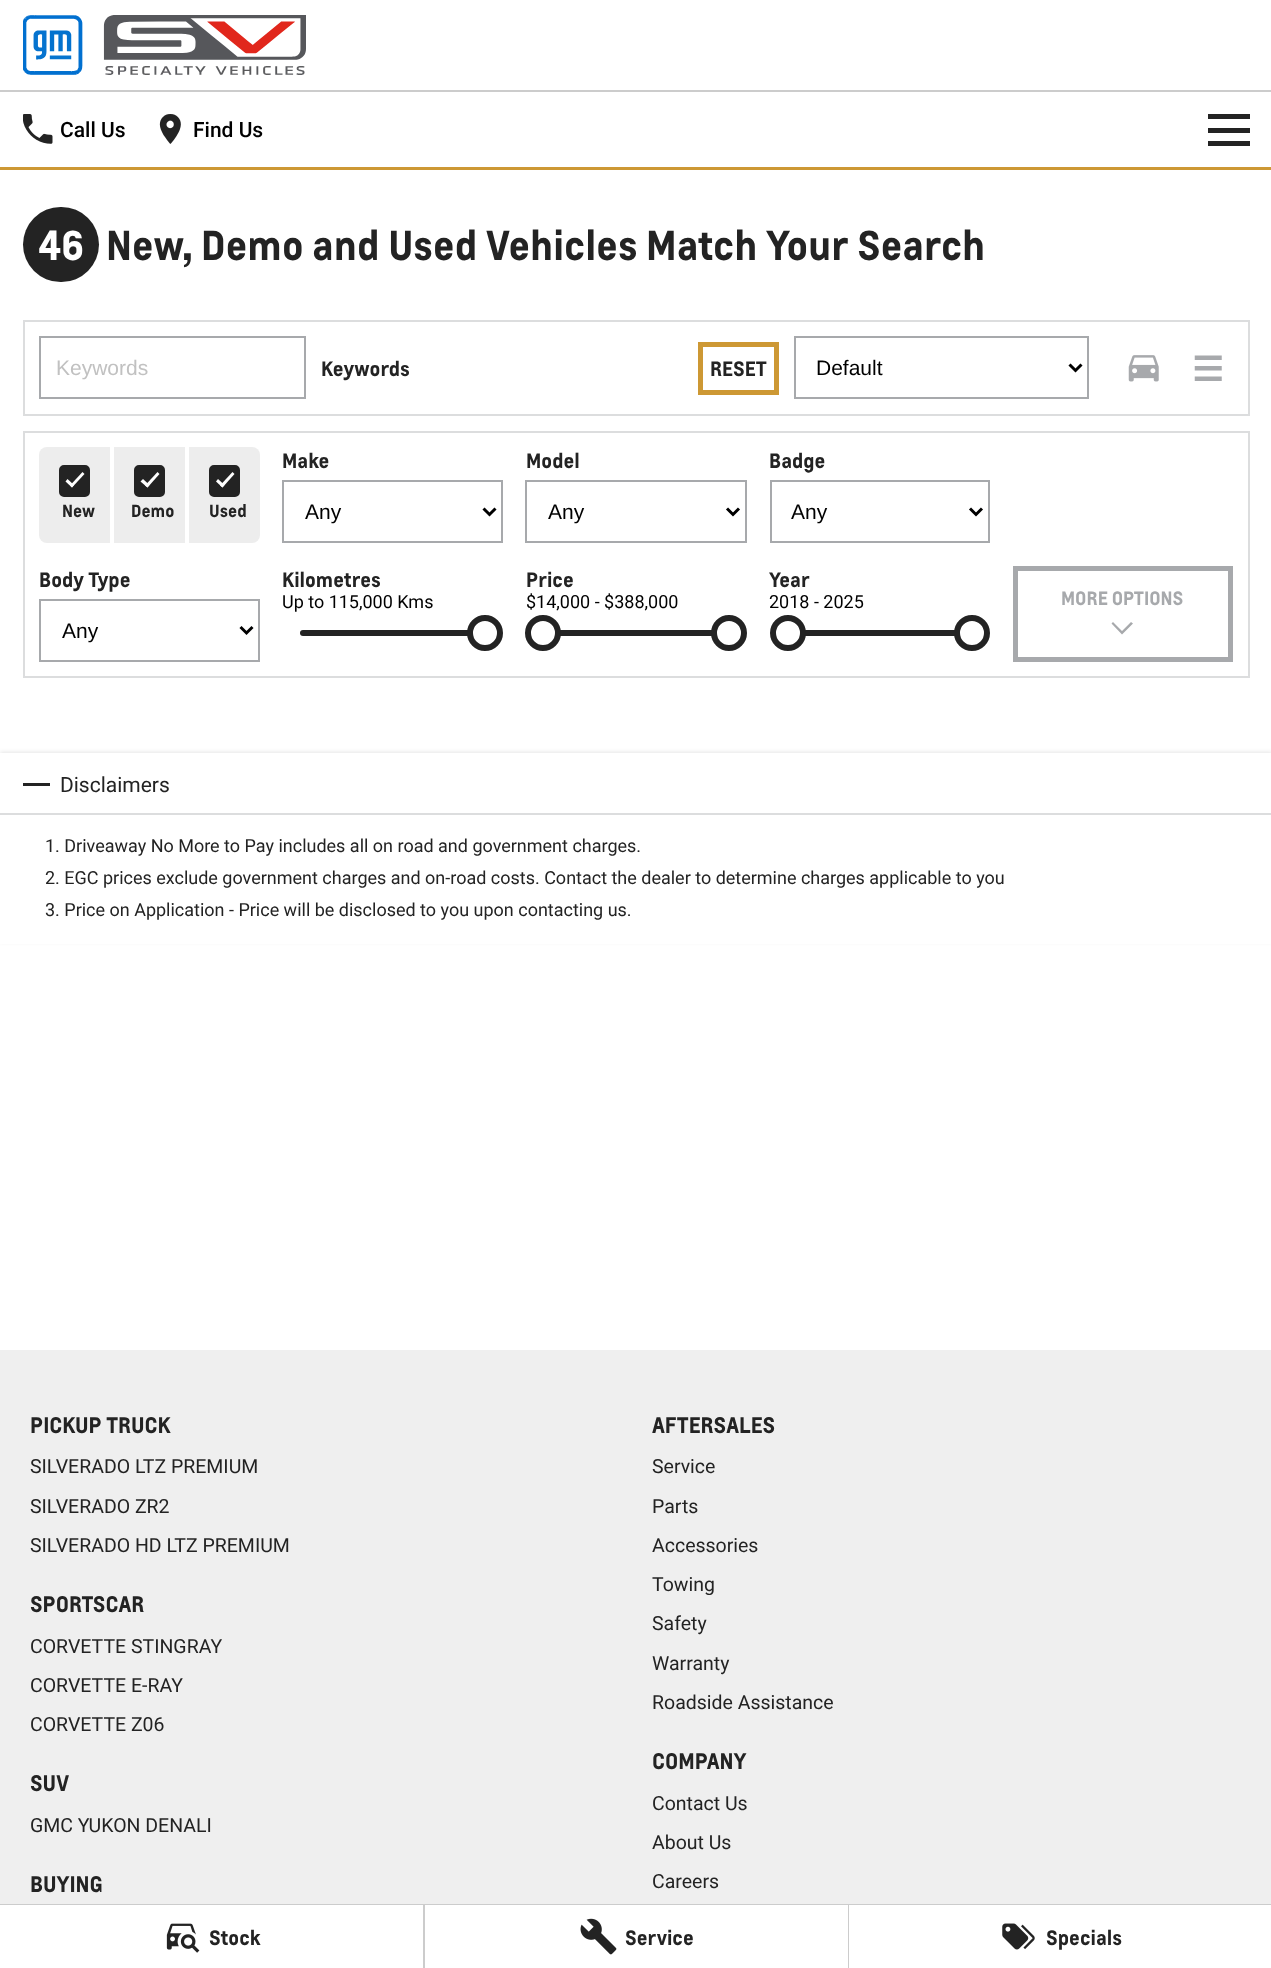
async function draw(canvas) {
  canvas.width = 1271;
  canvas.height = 1968;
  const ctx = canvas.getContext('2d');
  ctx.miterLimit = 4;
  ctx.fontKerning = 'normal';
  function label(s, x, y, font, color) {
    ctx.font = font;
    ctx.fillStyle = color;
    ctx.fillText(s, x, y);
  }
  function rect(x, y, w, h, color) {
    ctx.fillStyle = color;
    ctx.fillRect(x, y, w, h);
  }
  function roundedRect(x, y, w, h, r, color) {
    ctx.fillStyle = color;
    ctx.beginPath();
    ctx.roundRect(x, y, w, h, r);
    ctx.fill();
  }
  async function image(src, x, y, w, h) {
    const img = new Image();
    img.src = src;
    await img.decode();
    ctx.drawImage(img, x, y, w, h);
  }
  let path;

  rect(0, 0, 1271, 1968, '#fff');
  rect(0, 90, 1271, 2, '#ccc');
  await image('assets/img1.png', 23, 15, 283, 60);
  rect(0, 167, 1271, 3, '#cd9834');
  await image('assets/img2.png', 23, 114, 30, 30);
  label('Call Us', 60, 137, '500 21px Roboto', '#000');
  await image('assets/img3.png', 159, 114, 22, 30);
  label('Find Us', 193, 137, '500 21px Roboto', '#000');
  rect(1208, 114, 42, 5, '#232323');
  rect(1208, 128, 42, 5, '#232323');
  rect(1208, 141, 42, 5, '#232323');
  roundedRect(23, 207, 76, 75, 37.5, '#232323');
  label('46', 38, 260, 'bold 39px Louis', '#fff');
  label('New, Demo and Used Vehicles Match Your Search', 106, 260, 'bold 39px Louis', '#232323');
  ctx.strokeStyle = '#dcddde';
  ctx.lineWidth = 2;
  ctx.strokeRect(24, 321, 1225, 94);
  ctx.strokeStyle = '#a7a9ac';
  ctx.strokeRect(40, 337, 265, 61);
  label('Keywords', 56, 375, '21px Liberation Sans', '#c1c1c1');
  label('Keywords', 321, 376, 'bold 19.5px Louis', '#232323');
  ctx.strokeStyle = '#cd9834';
  ctx.lineWidth = 5;
  ctx.strokeRect(700.5, 344.5, 76, 48);
  label('RESET', 710, 376, 'bold 19.5px Louis', '#232323');
  ctx.strokeStyle = '#a7a9ac';
  ctx.lineWidth = 2;
  ctx.strokeRect(795, 337, 293, 61);
  path = new Path2D('M1069.5 364.5L1075.5 370.5L1081.5 364.5');
  ctx.strokeStyle = '#000';
  ctx.lineWidth = 3;
  ctx.stroke(path);
  label('Default', 816, 375, '21px Liberation Sans', '#000');
  await image('assets/img4.png', 1128, 355, 31, 27);
  await image('assets/img5.png', 1194, 355, 28, 26);
  ctx.strokeStyle = '#dcddde';
  ctx.lineWidth = 2;
  ctx.strokeRect(24, 432, 1225, 245);
  ctx.fillStyle = '#ededed';
  ctx.beginPath();
  ctx.roundRect(39, 447, 71, 96, [8, 0, 0, 8]);
  ctx.fill();
  ctx.fillStyle = '#232323';
  ctx.beginPath();
  ctx.roundRect(60, 466, 29, 30, 4);
  ctx.fill();
  ctx.strokeStyle = '#232323';
  ctx.stroke();
  ctx.fillStyle = '#fff';
  path = new Path2D('M82.5 472L84.5 474L72 487.5L70 485.5Z');
  ctx.fill(path);
  path = new Path2D('M67.5 479L74 485L72 487.5L65.5 481.5Z');
  ctx.fill(path);
  label('New', 62, 517, 'bold 16.5px Louis', '#232323');
  rect(114, 447, 71, 96, '#ededed');
  ctx.fillStyle = '#232323';
  ctx.beginPath();
  ctx.roundRect(135, 466, 29, 30, 4);
  ctx.fill();
  ctx.stroke();
  ctx.fillStyle = '#fff';
  path = new Path2D('M157.5 472L159.5 474L147.5 487.5L145 485.5Z');
  ctx.fill(path);
  path = new Path2D('M143 479L149.5 485L147.5 487.5L140.5 481.5Z');
  ctx.fill(path);
  label('Demo', 131, 517, 'bold 16.5px Louis', '#232323');
  ctx.fillStyle = '#ededed';
  ctx.beginPath();
  ctx.roundRect(189, 447, 71, 96, [0, 8, 8, 0]);
  ctx.fill();
  ctx.fillStyle = '#232323';
  ctx.beginPath();
  ctx.roundRect(210, 466, 29, 30, 4);
  ctx.fill();
  ctx.stroke();
  ctx.fillStyle = '#fff';
  path = new Path2D('M232.5 472L234.5 474L222.5 487.5L220 485.5Z');
  ctx.fill(path);
  path = new Path2D('M218 479L224.5 485L222.5 487.5L216 481.5Z');
  ctx.fill(path);
  label('Used', 209, 517, 'bold 16.5px Louis', '#232323');
  label('Make', 282, 468, 'bold 19.5px Louis', '#232323');
  ctx.strokeStyle = '#a7a9ac';
  ctx.strokeRect(283, 481, 219, 61);
  path = new Path2D('M483.5 508.5L489.5 514.5L495.5 508.5');
  ctx.strokeStyle = '#000';
  ctx.lineWidth = 3;
  ctx.stroke(path);
  label('Any', 305, 519, '21px Liberation Sans', '#000');
  label('Model', 526, 468, 'bold 19.5px Louis', '#232323');
  ctx.strokeStyle = '#a7a9ac';
  ctx.lineWidth = 2;
  ctx.strokeRect(526, 481, 220, 61);
  path = new Path2D('M727 508.5L733 514.5L739 508.5');
  ctx.strokeStyle = '#000';
  ctx.lineWidth = 3;
  ctx.stroke(path);
  label('Any', 548, 519, '21px Liberation Sans', '#000');
  label('Badge', 769, 468, 'bold 19.5px Louis', '#232323');
  ctx.strokeStyle = '#a7a9ac';
  ctx.lineWidth = 2;
  ctx.strokeRect(771, 481, 218, 61);
  path = new Path2D('M970 508.5L976 514.5L982 508.5');
  ctx.strokeStyle = '#000';
  ctx.lineWidth = 3;
  ctx.stroke(path);
  label('Any', 791, 519, '21px Liberation Sans', '#000');
  label('Body Type', 39, 587, 'bold 19.5px Louis', '#232323');
  ctx.strokeStyle = '#a7a9ac';
  ctx.lineWidth = 2;
  ctx.strokeRect(40, 600, 219, 61);
  path = new Path2D('M240.5 627L246.5 633L252.5 627');
  ctx.strokeStyle = '#000';
  ctx.lineWidth = 3;
  ctx.stroke(path);
  label('Any', 62, 638, '21px Liberation Sans', '#000');
  label('Kilometres', 282, 587, 'bold 19.5px Louis', '#232323');
  label('Up to 115,000 Kms', 282, 608, '18px Roboto', '#000');
  roundedRect(300, 630, 185, 6, 3, '#232323');
  ctx.fillStyle = '#fff';
  ctx.beginPath();
  ctx.arc(485, 633, 15, 0, 2 * Math.PI);
  ctx.fill();
  ctx.strokeStyle = '#232323';
  ctx.lineWidth = 6;
  ctx.stroke();
  label('Price', 526, 587, 'bold 19.5px Louis', '#232323');
  label('$14,000 - $388,000', 526, 608, '18px Roboto', '#000');
  rect(560, 630, 152, 6, '#232323');
  ctx.fillStyle = '#fff';
  ctx.beginPath();
  ctx.arc(543, 633, 15, 0, 2 * Math.PI);
  ctx.fill();
  ctx.stroke();
  ctx.beginPath();
  ctx.arc(729, 633, 15, 0, 2 * Math.PI);
  ctx.fill();
  ctx.stroke();
  label('Year', 769, 587, 'bold 19.5px Louis', '#232323');
  label('2018 - 2025', 769, 608, '18px Roboto', '#000');
  rect(805, 630, 150, 6, '#232323');
  ctx.fillStyle = '#fff';
  ctx.beginPath();
  ctx.arc(788, 633, 15, 0, 2 * Math.PI);
  ctx.fill();
  ctx.stroke();
  ctx.beginPath();
  ctx.arc(972, 633, 15, 0, 2 * Math.PI);
  ctx.fill();
  ctx.stroke();
  ctx.strokeStyle = '#a7a9ac';
  ctx.lineWidth = 5;
  ctx.strokeRect(1015.5, 568.5, 215, 91);
  label('MORE OPTIONS', 1061, 605, 'bold 18px Louis', '#a7a9ac');
  path = new Path2D('M1133 623.5L1122 634.5L1111.5 623.5L1113 622L1122 631L1131 622Z');
  ctx.fill(path);
  ctx.fillStyle = '#0000001a';
  ctx.filter = 'blur(2px)';
  ctx.beginPath();
  ctx.rect(0, 752, 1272, 190);
  ctx.fill();
  ctx.filter = 'none';
  rect(0, 753, 1271, 191, '#fff');
  rect(23, 783, 27, 3, '#232323');
  label('Disclaimers', 60, 792, '21px Roboto', '#232323');
  rect(0, 813, 1271, 2, '#dcddde');
  label('1. Driveaway No More to Pay includes all on road and government charges.', 45, 852, '18px Roboto', '#232323');
  label('2. EGC prices exclude government charges and on-road costs. Contact the dealer to determine charges applicable to you', 45, 884, '18px Roboto', '#232323');
  label('3. Price on Application - Price will be disclosed to you upon contacting us.', 45, 916, '18px Roboto', '#232323');
  rect(0, 1350, 1271, 554, '#efefef');
  label('PICKUP TRUCK', 30, 1433, 'bold 21px Louis', '#232323');
  label('SILVERADO LTZ PREMIUM', 30, 1473, '19.5px Roboto', '#232323');
  label('SILVERADO ZR2', 30, 1513, '19.5px Roboto', '#232323');
  label('SILVERADO HD LTZ PREMIUM', 30, 1552, '19.5px Roboto', '#232323');
  label('AFTERSALES', 652, 1433, 'bold 21px Louis', '#232323');
  label('Service', 652, 1473, '19.5px Roboto', '#232323');
  label('Parts', 652, 1513, '19.5px Roboto', '#232323');
  label('Accessories', 652, 1552, '19.5px Roboto', '#232323');
  label('Towing', 652, 1591, '19.5px Roboto', '#232323');
  label('Safety', 652, 1630, '19.5px Roboto', '#232323');
  label('Warranty', 652, 1670, '19.5px Roboto', '#232323');
  label('Roadside Assistance', 652, 1709, '19.5px Roboto', '#232323');
  label('SPORTSCAR', 30, 1612, 'bold 21px Louis', '#232323');
  label('CORVETTE STINGRAY', 30, 1653, '19.5px Roboto', '#232323');
  label('CORVETTE E-RAY', 30, 1692, '19.5px Roboto', '#232323');
  label('CORVETTE Z06', 30, 1731, '19.5px Roboto', '#232323');
  label('SUV', 30, 1791, 'bold 21px Louis', '#232323');
  label('GMC YUKON DENALI', 30, 1832, '19.5px Roboto', '#232323');
  label('COMPANY', 652, 1769, 'bold 21px Louis', '#232323');
  label('Contact Us', 652, 1810, '19.5px Roboto', '#232323');
  label('About Us', 652, 1849, '19.5px Roboto', '#232323');
  label('Careers', 652, 1888, '19.5px Roboto', '#232323');
  label('BUYING', 30, 1892, 'bold 21px Louis', '#232323');
  rect(0, 1904, 1271, 1, '#ccc');
  rect(423, 1905, 2, 63, '#ccc');
  await image('assets/img6.png', 166, 1923, 34, 30);
  label('Stock', 209, 1945, 'bold 19.5px Louis', '#232323');
  rect(848, 1905, 1, 63, '#ccc');
  await image('assets/img7.png', 580, 1918, 37, 37);
  label('Service', 625, 1945, 'bold 19.5px Louis', '#232323');
  await image('assets/img8.png', 1002, 1923, 33, 27);
  label('Specials', 1046, 1945, 'bold 19.5px Louis', '#232323');
}

draw(document.querySelector('canvas'));
